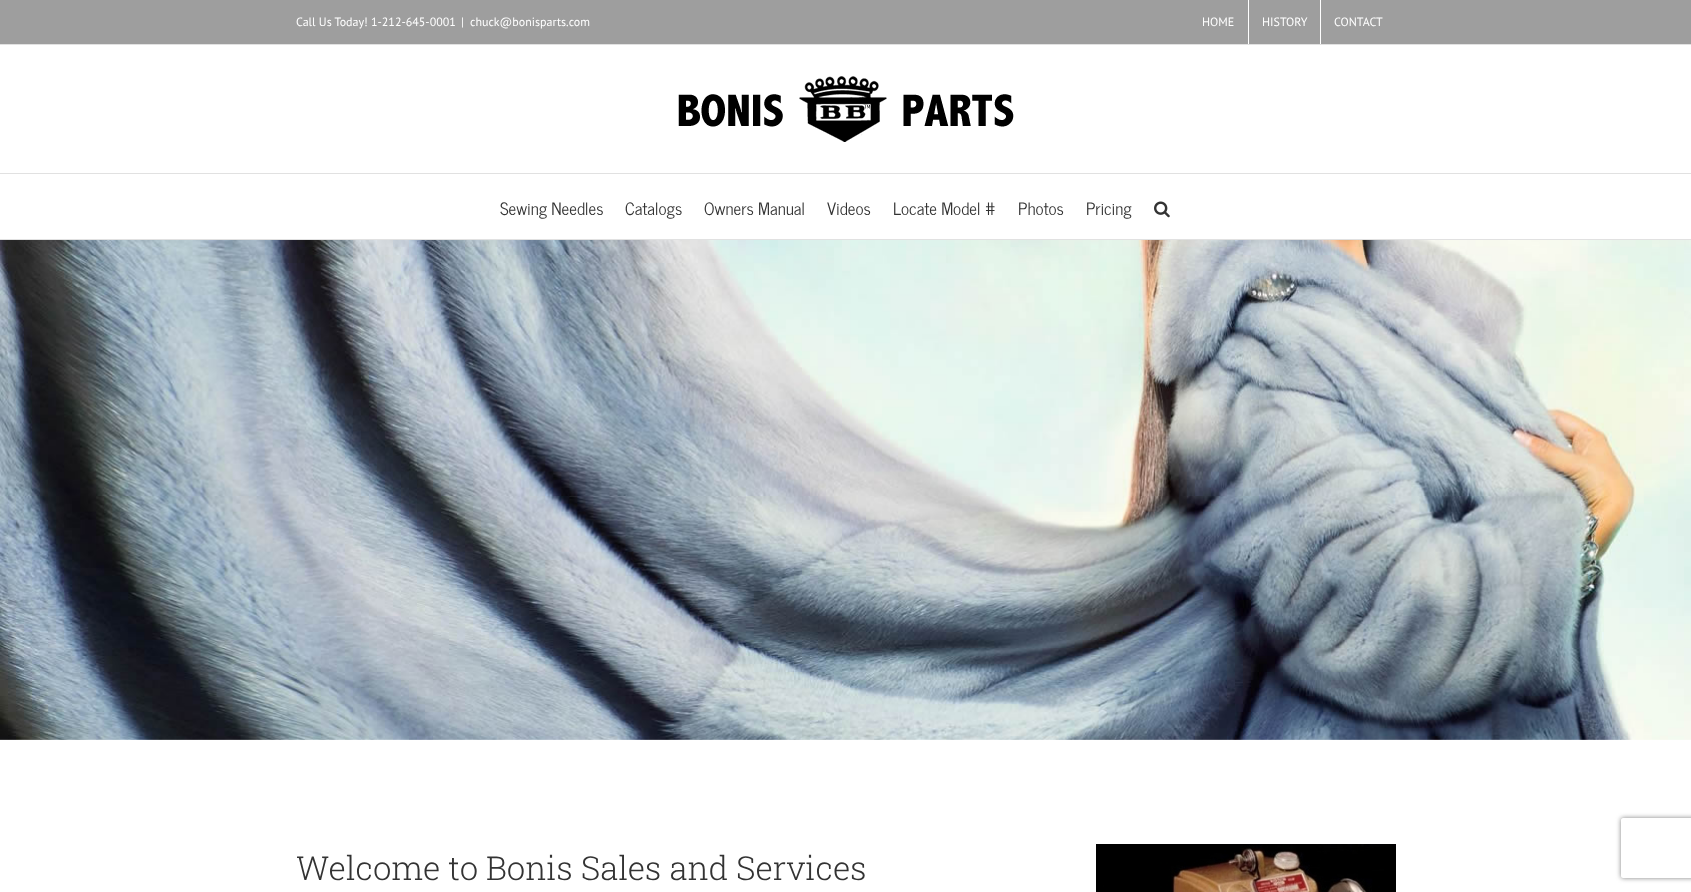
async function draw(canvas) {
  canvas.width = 1691;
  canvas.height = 892;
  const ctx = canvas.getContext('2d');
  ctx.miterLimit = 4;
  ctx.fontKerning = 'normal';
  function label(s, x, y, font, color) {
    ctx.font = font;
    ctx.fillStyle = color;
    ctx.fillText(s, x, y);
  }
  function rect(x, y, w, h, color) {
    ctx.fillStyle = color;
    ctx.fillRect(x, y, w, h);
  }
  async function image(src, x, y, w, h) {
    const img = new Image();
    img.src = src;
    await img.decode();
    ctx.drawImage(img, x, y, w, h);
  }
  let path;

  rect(0, 0, 1691, 892, '#fff');
  rect(0, 0, 1691, 44, '#9e9e9e');
  rect(0, 44, 1691, 1, '#e1e1e1');
  label('Call Us Today! 1-212-645-0001', 296, 26, '12px PT Sans', '#fff');
  label('|', 461, 26, '12px PT Sans', '#fff');
  label('chuck@bonisparts.com', 470, 26, '12px PT Sans', '#fff');
  label('HOME', 1202, 26, '12px PT Sans', '#fff');
  rect(1248, 0, 1, 44, '#fff');
  label('HISTORY', 1262, 26, '12px PT Sans', '#fff');
  rect(1320, 0, 1, 44, '#fff');
  label('CONTACT', 1334, 26, '12px PT Sans', '#fff');
  rect(0, 173, 1691, 1, '#e1e1e1');
  await image('assets/img1.png', 678, 76, 336, 66);
  rect(0, 239, 1691, 1, '#e1e1e1');
  label('Sewing Needles', 500, 215, '17px News Cycle', '#333');
  label('Catalogs', 625, 215, '17px News Cycle', '#333');
  label('Owners Manual', 704, 215, '17px News Cycle', '#333');
  label('Videos', 827, 215, '17px News Cycle', '#333');
  label('Locate Model #', 893, 215, '17px News Cycle', '#333');
  label('Photos', 1018, 215, '17px News Cycle', '#333');
  label('Pricing', 1086, 215, '17px News Cycle', '#333');
  await image('assets/img2.png', 1154, 201, 16, 17);
  await image('assets/img3.png', 0, 240, 1691, 500);
  label('Welcome to Bonis Sales and Services', 296, 880, '300 33px Roboto Slab', '#333');
  await image('assets/img4.png', 1096, 844, 300, 48);
  ctx.save();
  path = new Path2D('M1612 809H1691V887H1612ZM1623 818H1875C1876 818 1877 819 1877 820V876C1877 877 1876 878 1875 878H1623C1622 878 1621 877 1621 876V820C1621 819 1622 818 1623 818Z');
  ctx.clip(path, 'evenodd');
  ctx.fillStyle = '#808080';
  ctx.filter = 'blur(2.5px)';
  ctx.beginPath();
  ctx.roundRect(1621, 818, 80, 60, 2);
  ctx.fill();
  ctx.filter = 'none';
  ctx.restore();
}

draw(document.querySelector('canvas'));
